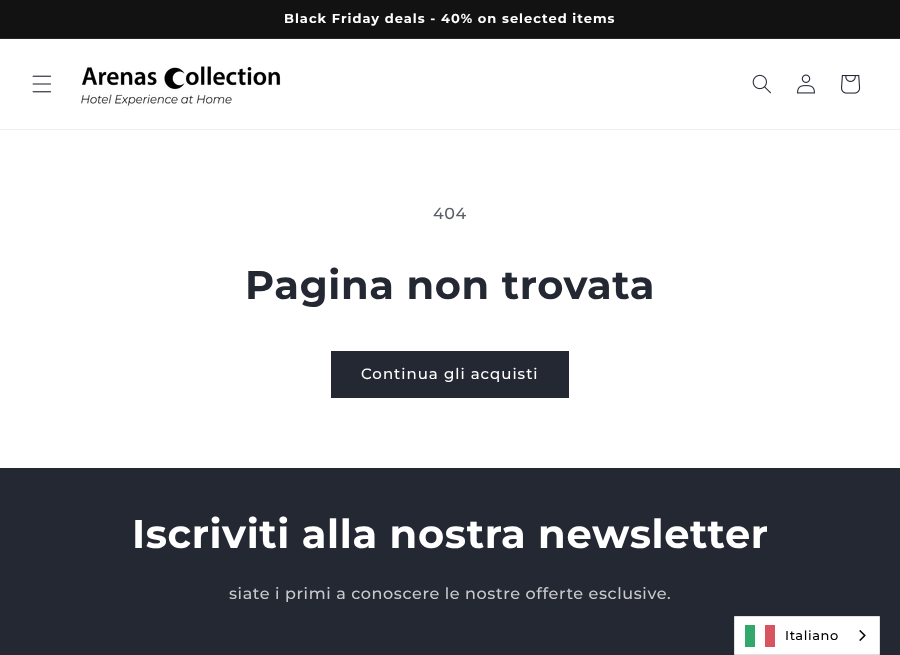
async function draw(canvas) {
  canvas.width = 900;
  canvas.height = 655;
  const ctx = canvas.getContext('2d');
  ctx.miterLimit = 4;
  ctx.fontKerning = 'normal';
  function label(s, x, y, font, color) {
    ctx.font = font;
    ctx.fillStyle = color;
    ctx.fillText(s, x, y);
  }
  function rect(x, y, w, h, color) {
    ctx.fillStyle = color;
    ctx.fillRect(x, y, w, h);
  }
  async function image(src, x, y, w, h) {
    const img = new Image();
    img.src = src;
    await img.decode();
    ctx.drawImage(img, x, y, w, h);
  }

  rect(0, 0, 900, 655, '#fff');
  rect(0, 0, 900, 38, '#121212');
  rect(0, 38, 900, 1, '#252525');
  ctx.letterSpacing = '1px';
  label('Black Friday deals - 40% on selected items', 284, 23, 'bold 13px Montserrat', '#fff');
  rect(0, 129, 900, 1, '#edeeef');
  await image('assets/img1.png', 32, 75, 20, 18);
  await image('assets/img2.png', 80, 65, 201, 44);
  await image('assets/img3.png', 752, 74, 19, 20);
  await image('assets/img4.png', 797, 74, 18, 20);
  await image('assets/img5.png', 841, 75, 20, 19);
  ctx.letterSpacing = '0.6px';
  label('404', 433, 219, '500 16px Montserrat', '#5b5e66');
  label('Pagina non trovata', 245, 299, 'bold 40px Montserrat', '#242833');
  rect(331, 351, 238, 47, '#242833');
  ctx.letterSpacing = '1px';
  label('Continua gli acquisti', 361, 379, '500 15px Montserrat', '#fff');
  rect(0, 468, 900, 187, '#242833');
  ctx.letterSpacing = '0.6px';
  label('Iscriviti alla nostra newsletter', 132, 548, 'bold 40px Montserrat', '#fff');
  label('siate i primi a conoscere le nostre offerte esclusive.', 229, 599, '500 16px Montserrat', '#c8c9cc');
  ctx.fillStyle = '#fff';
  ctx.beginPath();
  ctx.rect(734.5, 616.5, 145, 38);
  ctx.fill();
  ctx.strokeStyle = '#e0e0e0';
  ctx.stroke();
  rect(745, 625, 10, 22, '#33a86b');
  rect(765, 625, 10, 22, '#d8555f');
  label('Italiano', 785, 640, '500 13px Montserrat', '#000');
  await image('assets/img6.png', 859, 630, 7, 11);
}

draw(document.querySelector('canvas'));
